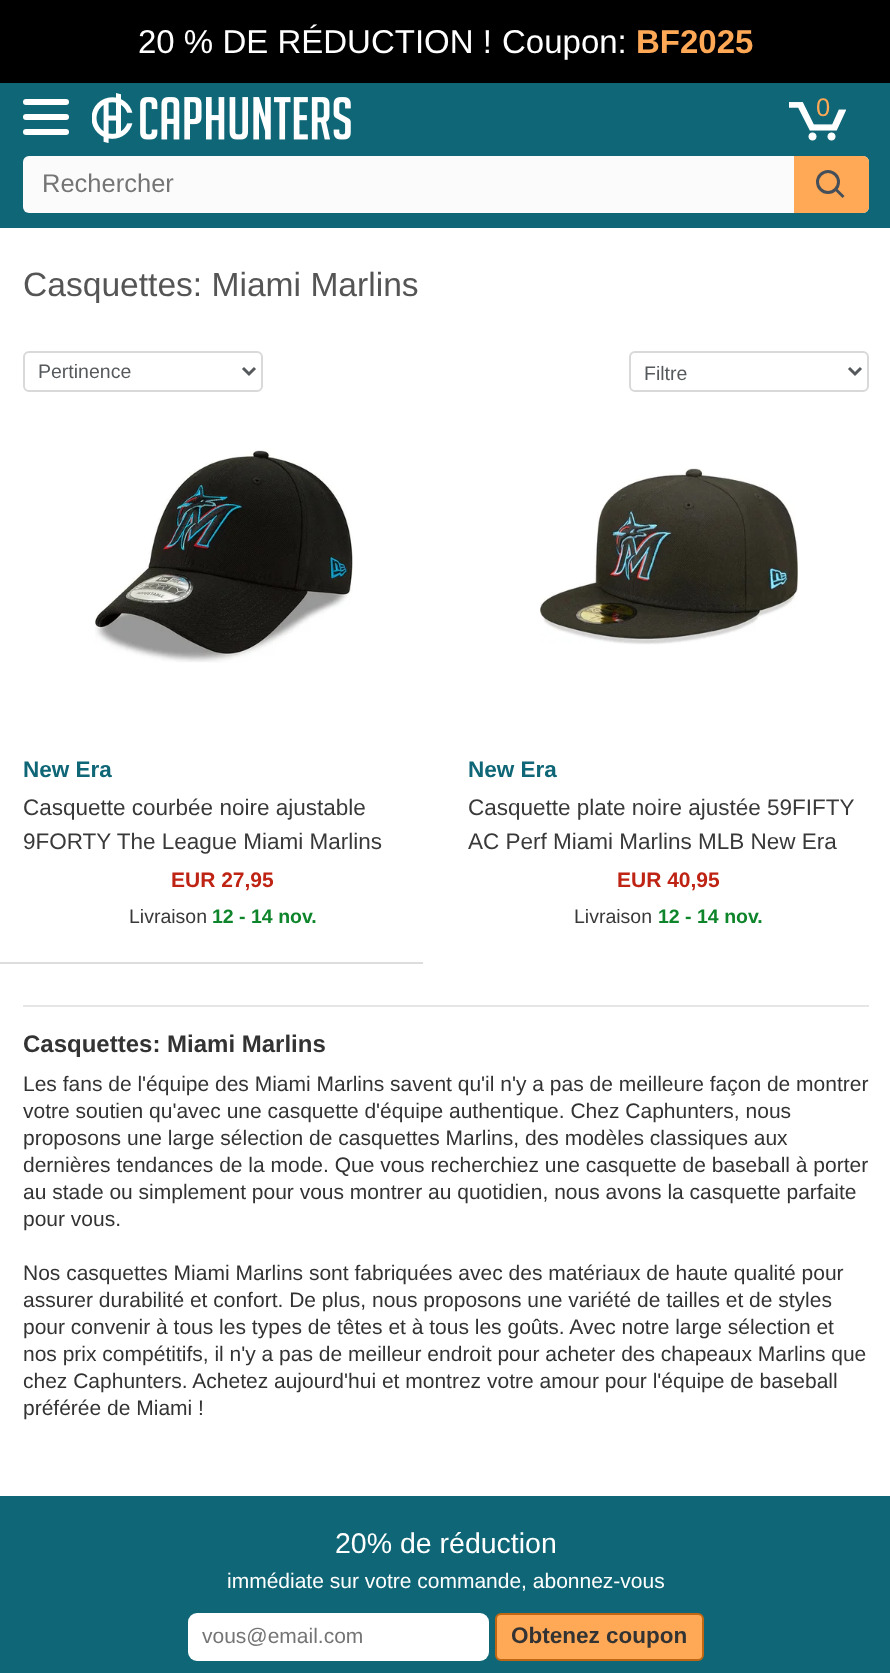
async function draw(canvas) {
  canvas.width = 890;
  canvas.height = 1673;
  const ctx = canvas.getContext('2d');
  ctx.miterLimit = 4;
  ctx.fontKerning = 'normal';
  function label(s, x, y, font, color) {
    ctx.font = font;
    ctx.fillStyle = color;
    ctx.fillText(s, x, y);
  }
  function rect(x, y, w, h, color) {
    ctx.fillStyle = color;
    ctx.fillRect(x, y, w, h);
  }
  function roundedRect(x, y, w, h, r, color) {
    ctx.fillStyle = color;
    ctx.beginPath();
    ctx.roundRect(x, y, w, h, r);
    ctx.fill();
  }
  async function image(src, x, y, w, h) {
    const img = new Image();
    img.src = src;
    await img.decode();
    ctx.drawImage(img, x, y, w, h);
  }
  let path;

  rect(0, 0, 890, 1673, '#fff');
  rect(0, 0, 890, 83, '#000');
  label('20 % DE RÉDUCTION !', 138, 53, '33px Liberation Sans', '#fff');
  label('Coupon:', 502, 53, '33px Liberation Sans', '#fff');
  label('BF2025', 636, 53, 'bold 33px Liberation Sans', '#ffa957');
  rect(0, 83, 890, 145, '#0e6676');
  roundedRect(23, 99, 46, 6, 3, '#fff');
  roundedRect(23, 114, 46, 6, 3, '#fff');
  roundedRect(23, 129, 46, 6, 3, '#fff');
  await image('assets/img1.png', 92, 93, 259, 50);
  await image('assets/img2.png', 789, 102, 57, 39);
  label('0', 816, 116, '25.5px Liberation Sans', '#ffa957');
  roundedRect(23, 156, 846, 57, 6, '#fbfbfb');
  label('Rechercher', 42, 192, '25.5px Liberation Sans', '#757575');
  ctx.fillStyle = '#ffa957';
  ctx.beginPath();
  ctx.roundRect(794, 156, 75, 57, [0, 6, 6, 0]);
  ctx.fill();
  ctx.beginPath();
  ctx.arc(828, 182, 10.5, 0, 2 * Math.PI);
  ctx.strokeStyle = '#454f59';
  ctx.lineWidth = 3;
  ctx.stroke();
  ctx.fillStyle = '#454f59';
  path = new Path2D('M836 187.5L844.5 196L842.5 198L834 189.5Z');
  ctx.fill(path);
  label('Casquettes: Miami Marlins', 23, 296, '33.6px Liberation Sans', '#555');
  ctx.beginPath();
  ctx.roundRect(24, 352, 238, 39, 5);
  ctx.strokeStyle = '#d9d9d9';
  ctx.lineWidth = 2;
  ctx.stroke();
  path = new Path2D('M243 368L249 374L255 368');
  ctx.strokeStyle = '#55595c';
  ctx.lineWidth = 3;
  ctx.stroke(path);
  label('Pertinence', 38, 378, '19.5px Liberation Sans', '#55595c');
  ctx.beginPath();
  ctx.roundRect(630, 352, 238, 39, 5);
  ctx.strokeStyle = '#d9d9d9';
  ctx.lineWidth = 2;
  ctx.stroke();
  path = new Path2D('M849 368L855 374L861 368');
  ctx.strokeStyle = '#55595c';
  ctx.lineWidth = 3;
  ctx.stroke(path);
  label('Filtre', 644, 380, '19.5px Liberation Sans', '#55595c');
  await image('assets/img3.png', 94, 449, 259, 214);
  label('New Era', 23, 777, 'bold 22.5px Liberation Sans', '#0e6676');
  label('Casquette courbée noire ajustable', 23, 815, '22.5px Liberation Sans', '#3a3939');
  label('9FORTY The League Miami Marlins', 23, 849, '22.5px Liberation Sans', '#3a3939');
  label('EUR 27,95', 171, 887, 'bold 21px Liberation Sans', '#bf2313');
  label('Livraison', 129, 923, '19.5px Liberation Sans', '#3a3939');
  label('12 - 14 nov.', 212, 923, 'bold 19.5px Liberation Sans', '#0e852b');
  rect(0, 962, 423, 2, '#ddd');
  await image('assets/img4.png', 540, 468, 258, 177);
  label('New Era', 468, 777, 'bold 22.5px Liberation Sans', '#0e6676');
  label('Casquette plate noire ajustée 59FIFTY', 468, 815, '22.5px Liberation Sans', '#3a3939');
  label('AC Perf Miami Marlins MLB New Era', 468, 849, '22.5px Liberation Sans', '#3a3939');
  label('EUR 40,95', 617, 887, 'bold 21px Liberation Sans', '#bf2313');
  label('Livraison', 574, 923, '19.5px Liberation Sans', '#3a3939');
  label('12 - 14 nov.', 658, 923, 'bold 19.5px Liberation Sans', '#0e852b');
  rect(23, 1005, 846, 2, '#e6e6e6');
  label('Casquettes: Miami Marlins', 23, 1052, 'bold 24px Liberation Sans', '#333');
  label('Les fans de l\'équipe des Miami Marlins savent qu\'il n\'y a pas de meilleure façon de montrer', 23, 1091, '21px Liberation Sans', '#333');
  label('votre soutien qu\'avec une casquette d\'équipe authentique. Chez Caphunters, nous', 23, 1118, '21px Liberation Sans', '#333');
  label('proposons une large sélection de casquettes Marlins, des modèles classiques aux', 23, 1145, '21px Liberation Sans', '#333');
  label('dernières tendances de la mode. Que vous recherchiez une casquette de baseball à porter', 23, 1172, '21px Liberation Sans', '#333');
  label('au stade ou simplement pour vous montrer au quotidien, nous avons la casquette parfaite', 23, 1199, '21px Liberation Sans', '#333');
  label('pour vous.', 23, 1226, '21px Liberation Sans', '#333');
  label('Nos casquettes Miami Marlins sont fabriquées avec des matériaux de haute qualité pour', 23, 1280, '21px Liberation Sans', '#333');
  label('assurer durabilité et confort. De plus, nous proposons une variété de tailles et de styles', 23, 1307, '21px Liberation Sans', '#333');
  label('pour convenir à tous les types de têtes et à tous les goûts. Avec notre large sélection et', 23, 1334, '21px Liberation Sans', '#333');
  label('nos prix compétitifs, il n\'y a pas de meilleur endroit pour acheter des chapeaux Marlins que', 23, 1361, '21px Liberation Sans', '#333');
  label('chez Caphunters. Achetez aujourd\'hui et montrez votre amour pour l\'équipe de baseball', 23, 1388, '21px Liberation Sans', '#333');
  label('préférée de Miami !', 23, 1415, '21px Liberation Sans', '#333');
  rect(0, 1496, 890, 177, '#0e6676');
  label('20% de réduction', 335, 1553, '28.5px Liberation Sans', '#fff');
  label('immédiate sur votre commande, abonnez-vous', 227, 1588, '21px Liberation Sans', '#fff');
  roundedRect(188, 1613, 301, 48, 9, '#fff');
  label('vous@email.com', 202, 1643, '21px Liberation Sans', '#757575');
  ctx.fillStyle = '#ffa957';
  ctx.beginPath();
  ctx.roundRect(496, 1614, 207, 46, 5);
  ctx.fill();
  ctx.strokeStyle = '#bf6713';
  ctx.lineWidth = 2;
  ctx.stroke();
  label('Obtenez coupon', 511, 1643, 'bold 22.5px Liberation Sans', '#333');
}

draw(document.querySelector('canvas'));
